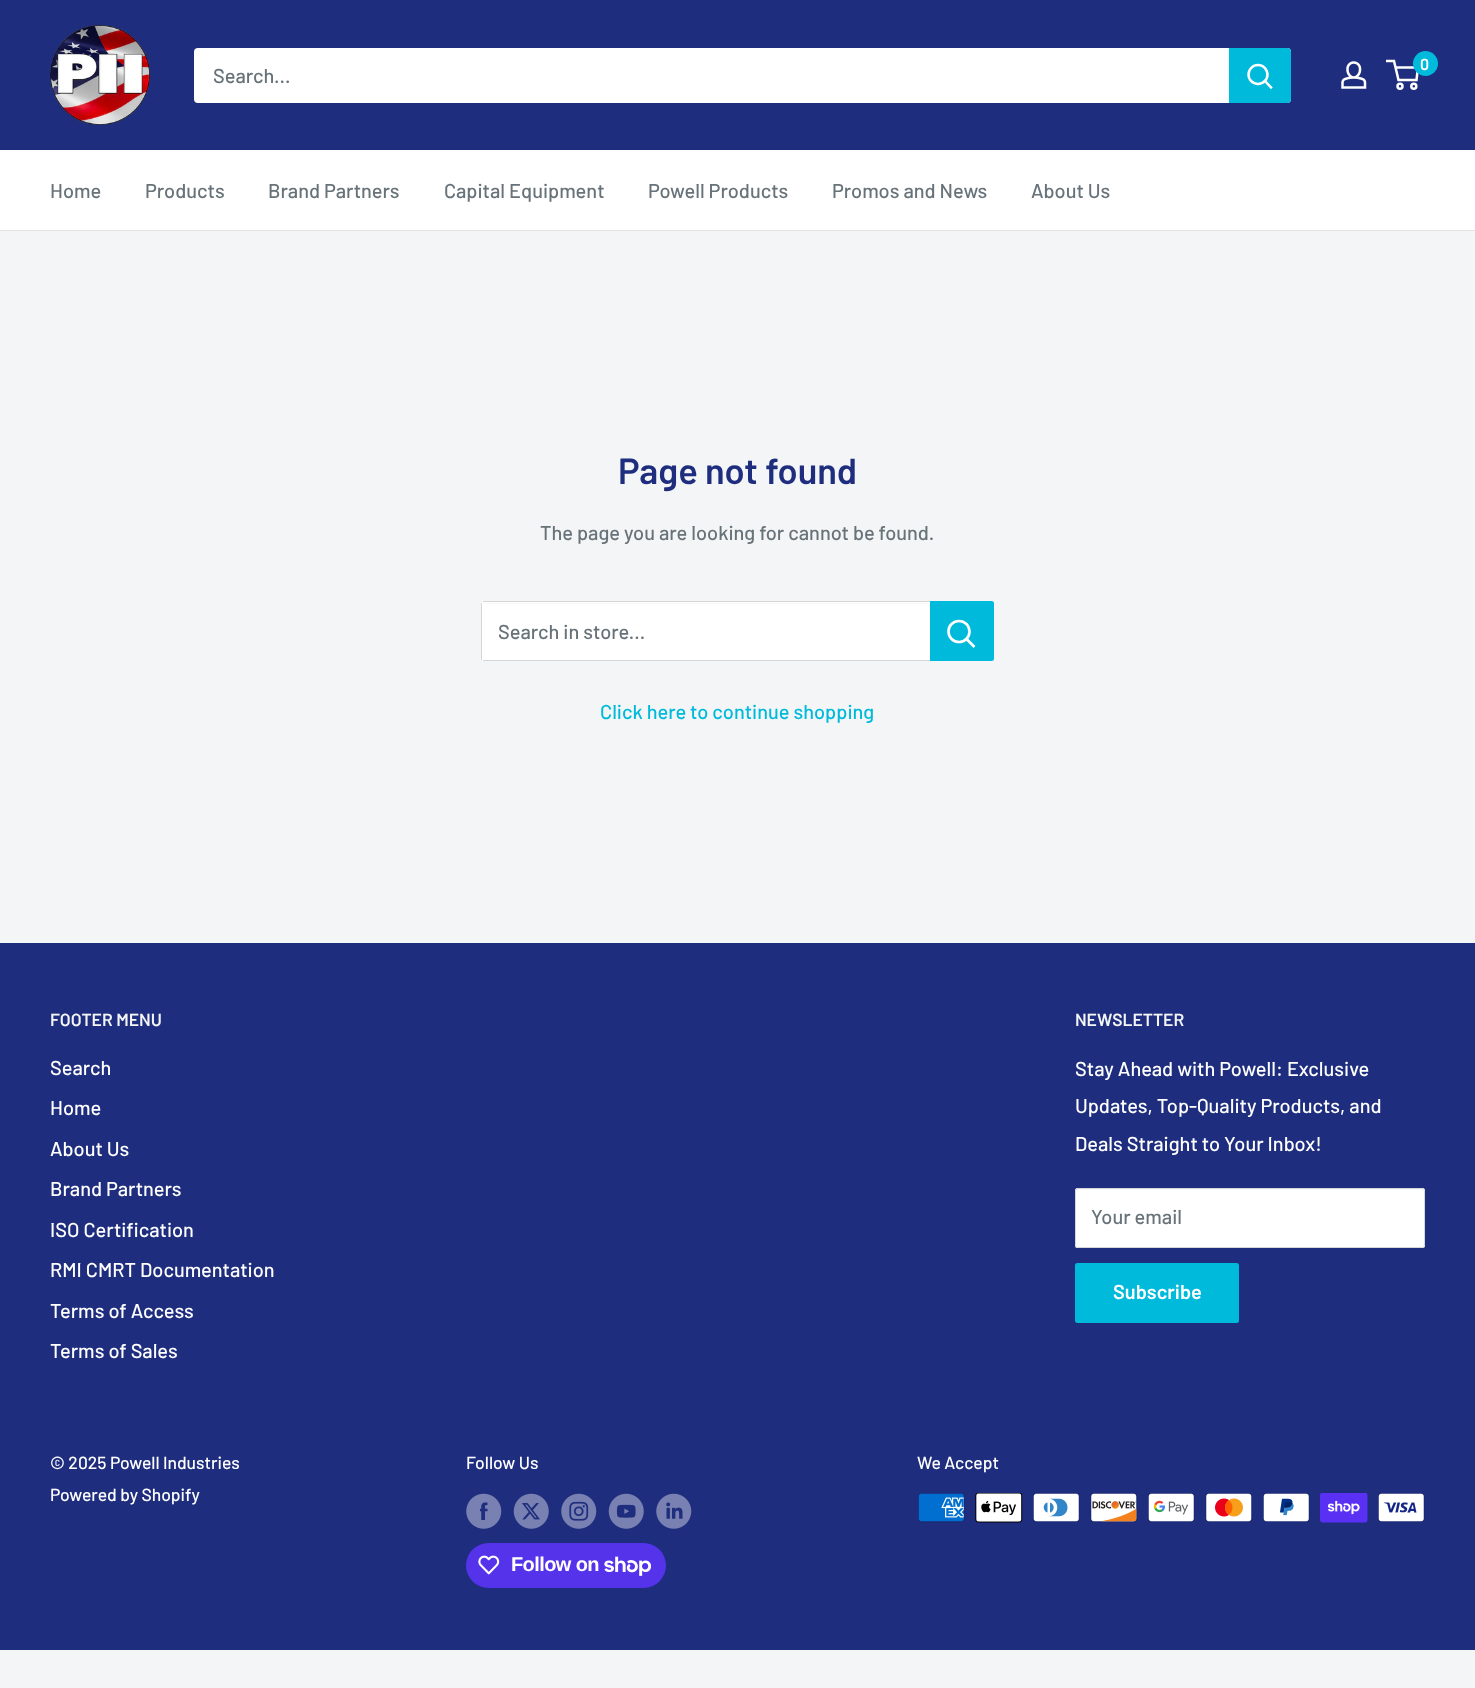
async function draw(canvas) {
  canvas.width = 1475;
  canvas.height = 1688;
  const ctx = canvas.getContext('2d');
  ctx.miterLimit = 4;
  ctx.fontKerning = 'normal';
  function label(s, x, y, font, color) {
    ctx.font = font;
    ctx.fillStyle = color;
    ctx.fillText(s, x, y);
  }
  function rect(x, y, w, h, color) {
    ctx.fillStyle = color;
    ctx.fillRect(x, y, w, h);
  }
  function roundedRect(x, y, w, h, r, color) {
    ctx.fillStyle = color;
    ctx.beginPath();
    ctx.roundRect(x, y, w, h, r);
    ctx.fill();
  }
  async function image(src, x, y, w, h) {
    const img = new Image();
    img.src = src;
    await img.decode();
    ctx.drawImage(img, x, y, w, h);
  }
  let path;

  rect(0, 0, 1475, 1688, '#f3f5f6');
  rect(0, 0, 1475, 150, '#1e2d7d');
  await image('assets/img1.png', 50, 25, 100, 100);
  await image('assets/img2.png', 1341, 61, 26, 28);
  ctx.beginPath();
  ctx.arc(1400, 86.2, 2.5, 0, 2 * Math.PI);
  ctx.strokeStyle = '#fff';
  ctx.lineWidth = 2.5;
  ctx.stroke();
  ctx.beginPath();
  ctx.arc(1413.8, 86.2, 2.5, 0, 2 * Math.PI);
  ctx.stroke();
  path = new Path2D('M1395.5 67.5H1418L1416.5 80H1398.5L1394 61H1386');
  ctx.stroke(path);
  ctx.fillStyle = '#00badb';
  ctx.beginPath();
  ctx.arc(1425.5, 63.5, 12.5, 0, 2 * Math.PI);
  ctx.fill();
  label('0', 1420, 70, '600 16px Barlow', '#fff');
  roundedRect(194, 48, 1097, 55, 4, '#fff');
  label('Search...', 213, 83, '500 20px Barlow', '#677279');
  ctx.fillStyle = '#00badb';
  ctx.beginPath();
  ctx.roundRect(1229, 48, 62, 55, [0, 4, 4, 0]);
  ctx.fill();
  path = new Path2D('M1271 87.5L1265 81');
  ctx.lineCap = 'square';
  ctx.stroke(path);
  ctx.beginPath();
  ctx.arc(1258, 74.5, 9.5, 0, 2 * Math.PI);
  ctx.stroke();
  rect(0, 150, 1475, 80, '#fff');
  rect(0, 230, 1475, 1, '#e1e3e4');
  label('Home', 50, 198, '500 20px Barlow', '#677279');
  label('Products', 145, 198, '500 20px Barlow', '#677279');
  label('Brand Partners', 268, 198, '500 20px Barlow', '#677279');
  label('Capital Equipment', 444, 198, '500 20px Barlow', '#677279');
  label('Powell Products', 648, 198, '500 20px Barlow', '#677279');
  label('Promos and News', 832, 198, '500 20px Barlow', '#677279');
  label('About Us', 1031, 198, '500 20px Barlow', '#677279');
  label('Page not found', 618, 484, '600 36.25px Barlow', '#1e2d7d');
  label('The page you are looking for cannot be found.', 540, 540, '500 20px Barlow', '#677279');
  ctx.fillStyle = '#fff';
  ctx.beginPath();
  ctx.roundRect(481, 601, 449, 60, [2.5, 0, 0, 2.5]);
  ctx.fill();
  ctx.fillStyle = '#f8f8f8';
  path = new Path2D('M484 604H930V603H484L483 604Z');
  ctx.fill(path);
  rect(483, 601, 447, 1, '#d4d6d8');
  rect(483, 660, 447, 1, '#d4d6d8');
  rect(481, 603, 1, 57, '#d4d6d8');
  label('Search in store...', 498, 639, '500 20px Barlow', '#677279');
  ctx.fillStyle = '#00badb';
  ctx.beginPath();
  ctx.roundRect(930, 601, 64, 60, [0, 2.5, 2.5, 0]);
  ctx.fill();
  path = new Path2D('M973.5 646L966.5 639');
  ctx.lineWidth = 2.7;
  ctx.stroke(path);
  ctx.beginPath();
  ctx.arc(959, 631.5, 10.5, 0, 2 * Math.PI);
  ctx.stroke();
  label('Click here to continue shopping', 600, 719, '500 20px Barlow', '#00badb');
  rect(0, 943, 1475, 707, '#1e2d7d');
  label('FOOTER MENU', 50, 1026, '600 17.5px Barlow', '#f3f5f6');
  label('Search', 50, 1075, '500 20px Barlow', '#fff');
  label('Home', 50, 1115, '500 20px Barlow', '#fff');
  label('About Us', 50, 1156, '500 20px Barlow', '#fff');
  label('Brand Partners', 50, 1196, '500 20px Barlow', '#fff');
  label('ISO Certification', 50, 1237, '500 20px Barlow', '#fff');
  label('RMI CMRT Documentation', 50, 1277, '500 20px Barlow', '#fff');
  label('Terms of Access', 50, 1318, '500 20px Barlow', '#fff');
  label('Terms of Sales', 50, 1358, '500 20px Barlow', '#fff');
  label('NEWSLETTER', 1075, 1026, '600 17.5px Barlow', '#f3f5f6');
  label('Stay Ahead with Powell: Exclusive', 1075, 1076, '500 20px Barlow', '#fff');
  label('Updates, Top-Quality Products, and', 1075, 1113, '500 20px Barlow', '#fff');
  label('Deals Straight to Your Inbox!', 1075, 1151, '500 20px Barlow', '#fff');
  roundedRect(1075, 1188, 350, 60, 2.5, '#fff');
  ctx.fillStyle = '#f8f8f8';
  path = new Path2D('M1078 1190H1422C1423 1190 1424 1191 1424 1191V1190L1423 1189H1076V1191Z');
  ctx.fill(path);
  ctx.beginPath();
  ctx.roundRect(1075.5, 1188.5, 349, 59, 2);
  ctx.strokeStyle = '#d4d6d8';
  ctx.lineWidth = 1;
  ctx.stroke();
  label('Your email', 1091, 1224, '500 20px Barlow', '#677279');
  roundedRect(1075, 1263, 164, 60, 2.5, '#00badb');
  label('Subscribe', 1113, 1299, '600 20px Barlow', '#fff');
  label('© 2025 Powell Industries', 50, 1469, '500 17.5px Barlow', '#fff');
  label('Powered by Shopify', 50, 1501, '500 17.5px Barlow', '#fff');
  label('Follow Us', 466, 1469, '500 17.5px Barlow', '#fff');
  await image('assets/img3.png', 466, 1493, 36, 36);
  await image('assets/img4.png', 513, 1493, 36, 36);
  await image('assets/img5.png', 561, 1493, 36, 36);
  await image('assets/img6.png', 608, 1493, 36, 36);
  await image('assets/img7.png', 656, 1493, 36, 36);
  roundedRect(466, 1543, 200, 45, 22.5, '#5433eb');
  await image('assets/img8.png', 478, 1555, 22, 20);
  ctx.letterSpacing = '-0.6px';
  label('Follow on', 511, 1571, 'bold 20px Liberation Sans', '#fff');
  await image('assets/img9.png', 604, 1556, 47, 20);
  ctx.letterSpacing = '0px';
  label('We Accept', 917, 1469, '500 17.5px Barlow', '#fff');
  await image('assets/img10.png', 918, 1493, 47, 30);
  await image('assets/img11.png', 975, 1493, 48, 30);
  await image('assets/img12.png', 1033, 1493, 47, 30);
  await image('assets/img13.png', 1090, 1493, 48, 30);
  await image('assets/img14.png', 1148, 1493, 47, 30);
  await image('assets/img15.png', 1205, 1493, 48, 30);
  await image('assets/img16.png', 1263, 1493, 47, 30);
  await image('assets/img17.png', 1320, 1493, 48, 30);
  await image('assets/img18.png', 1378, 1493, 47, 30);
}

draw(document.querySelector('canvas'));
